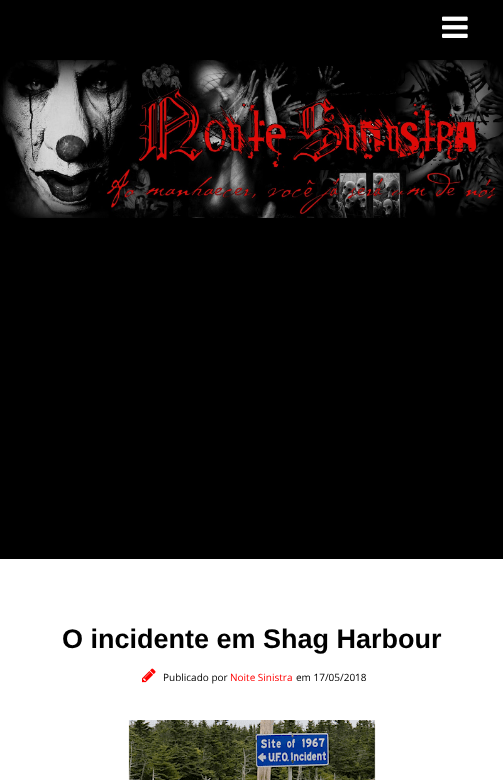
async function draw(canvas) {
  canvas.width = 503;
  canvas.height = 780;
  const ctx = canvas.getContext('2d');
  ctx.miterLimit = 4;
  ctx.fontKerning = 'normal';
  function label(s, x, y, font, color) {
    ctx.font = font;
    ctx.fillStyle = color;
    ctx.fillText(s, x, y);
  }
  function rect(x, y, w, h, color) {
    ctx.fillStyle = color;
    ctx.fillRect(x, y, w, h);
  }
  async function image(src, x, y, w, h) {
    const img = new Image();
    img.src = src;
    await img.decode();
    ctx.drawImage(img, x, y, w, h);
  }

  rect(0, 0, 503, 780, '#000');
  await image('assets/img1.png', 442, 16, 26, 22);
  await image('assets/img2.png', 0, 60, 503, 158);
  rect(0, 559, 503, 221, '#fff');
  label('O incidente em Shag Harbour', 62, 648, 'bold 27px Liberation Sans', '#000');
  await image('assets/img3.png', 142, 668, 14, 15);
  label('Publicado por', 163, 681, '10px Open Sans', '#000');
  label('Noite Sinistra', 230, 681, '10px Open Sans', '#f00');
  label('em 17/05/2018', 296, 681, '10px Open Sans', '#000');
  await image('assets/img4.png', 128, 720, 248, 60);
}

draw(document.querySelector('canvas'));
